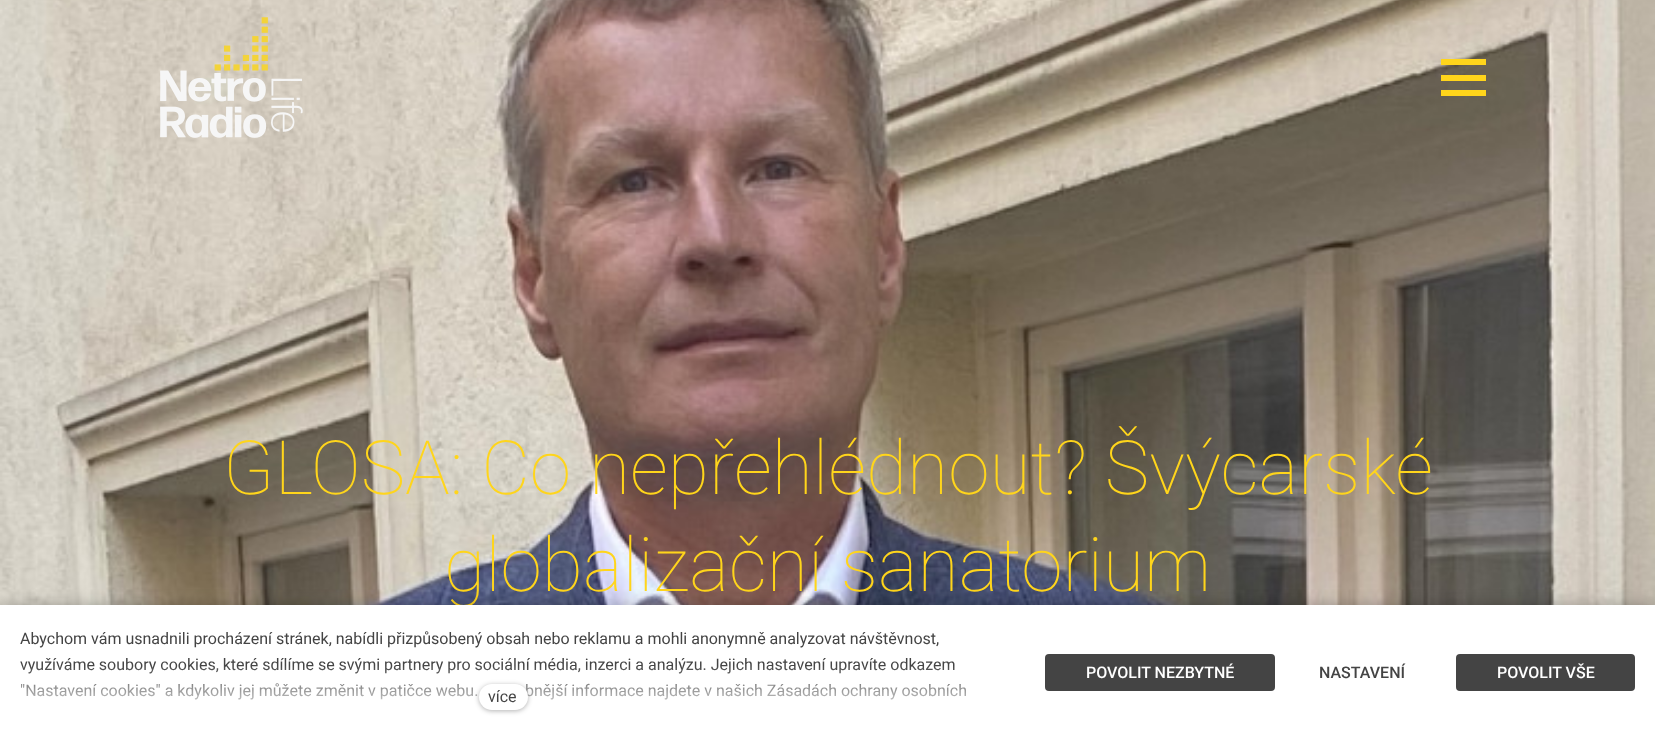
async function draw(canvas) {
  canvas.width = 1655;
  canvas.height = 739;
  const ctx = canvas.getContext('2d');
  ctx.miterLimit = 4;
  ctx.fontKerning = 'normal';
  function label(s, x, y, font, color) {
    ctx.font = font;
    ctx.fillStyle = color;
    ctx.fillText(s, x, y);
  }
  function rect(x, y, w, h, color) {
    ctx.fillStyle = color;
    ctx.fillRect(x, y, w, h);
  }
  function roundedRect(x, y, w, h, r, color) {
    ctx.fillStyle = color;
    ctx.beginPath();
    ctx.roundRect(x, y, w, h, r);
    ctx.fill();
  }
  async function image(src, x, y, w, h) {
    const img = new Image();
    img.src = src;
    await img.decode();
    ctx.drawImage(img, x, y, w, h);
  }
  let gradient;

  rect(0, 0, 1655, 739, '#fff');
  await image('assets/img2.png', 0, 0, 1655, 605);
  await image('assets/img1.png', 160, 17, 143, 121);
  rect(1441, 59, 45, 6, '#ffd51b');
  rect(1441, 75, 45, 6, '#ffd51b');
  rect(1441, 90, 45, 6, '#ffd51b');
  label('GLOSA: Co nepřehlédnout? Švýcarské', 223, 494, '100 75px Roboto', '#ffd51b');
  label('globalizační sanatorium', 444, 591, '100 75px Roboto', '#ffd51b');
  ctx.fillStyle = '#00000040';
  ctx.filter = 'blur(7.5px)';
  ctx.beginPath();
  ctx.rect(0, 605, 1655, 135);
  ctx.fill();
  ctx.filter = 'none';
  rect(0, 605, 1655, 134, '#fff');
  label('Abychom vám usnadnili procházení stránek, nabídli přizpůsobený obsah nebo reklamu a mohli anonymně analyzovat návštěvnost,', 20, 644, '16px Roboto', '#444');
  label('využíváme soubory cookies, které sdílíme se svými partnery pro sociální média, inzerci a analýzu. Jejich nastavení upravíte odkazem', 20, 670, '16px Roboto', '#444');
  label('"Nastavení cookies" a kdykoliv jej můžete změnit v patičce webu.', 20, 696, '16px Roboto', '#444');
  label('bnější informace najdete v našich Zásadách ochrany osobních', 525, 696, '16px Roboto', '#444');
  gradient = ctx.createLinearGradient(503, 720, 503, 665);
  gradient.addColorStop(0, '#fff');
  gradient.addColorStop(1, '#ffffff00');
  ctx.fillStyle = gradient;
  ctx.fillRect(21, 666, 945, 34);
  ctx.fillStyle = '#0000004d';
  ctx.filter = 'blur(2.5px)';
  ctx.beginPath();
  ctx.roundRect(479, 685, 49, 26, 13);
  ctx.fill();
  ctx.filter = 'none';
  roundedRect(479, 684, 49, 26, 13, '#fff');
  label('více', 488, 702, '16px Roboto', '#444');
  roundedRect(1045, 654, 230, 37, 4, '#444');
  label('POVOLIT NEZBYTNÉ', 1086, 678, '500 16px Roboto', '#fff');
  label('NASTAVENÍ', 1319, 678, '500 16px Roboto', '#444');
  roundedRect(1456, 654, 179, 37, 4, '#444');
  label('POVOLIT VŠE', 1497, 678, '500 16px Roboto', '#fff');
}

draw(document.querySelector('canvas'));
